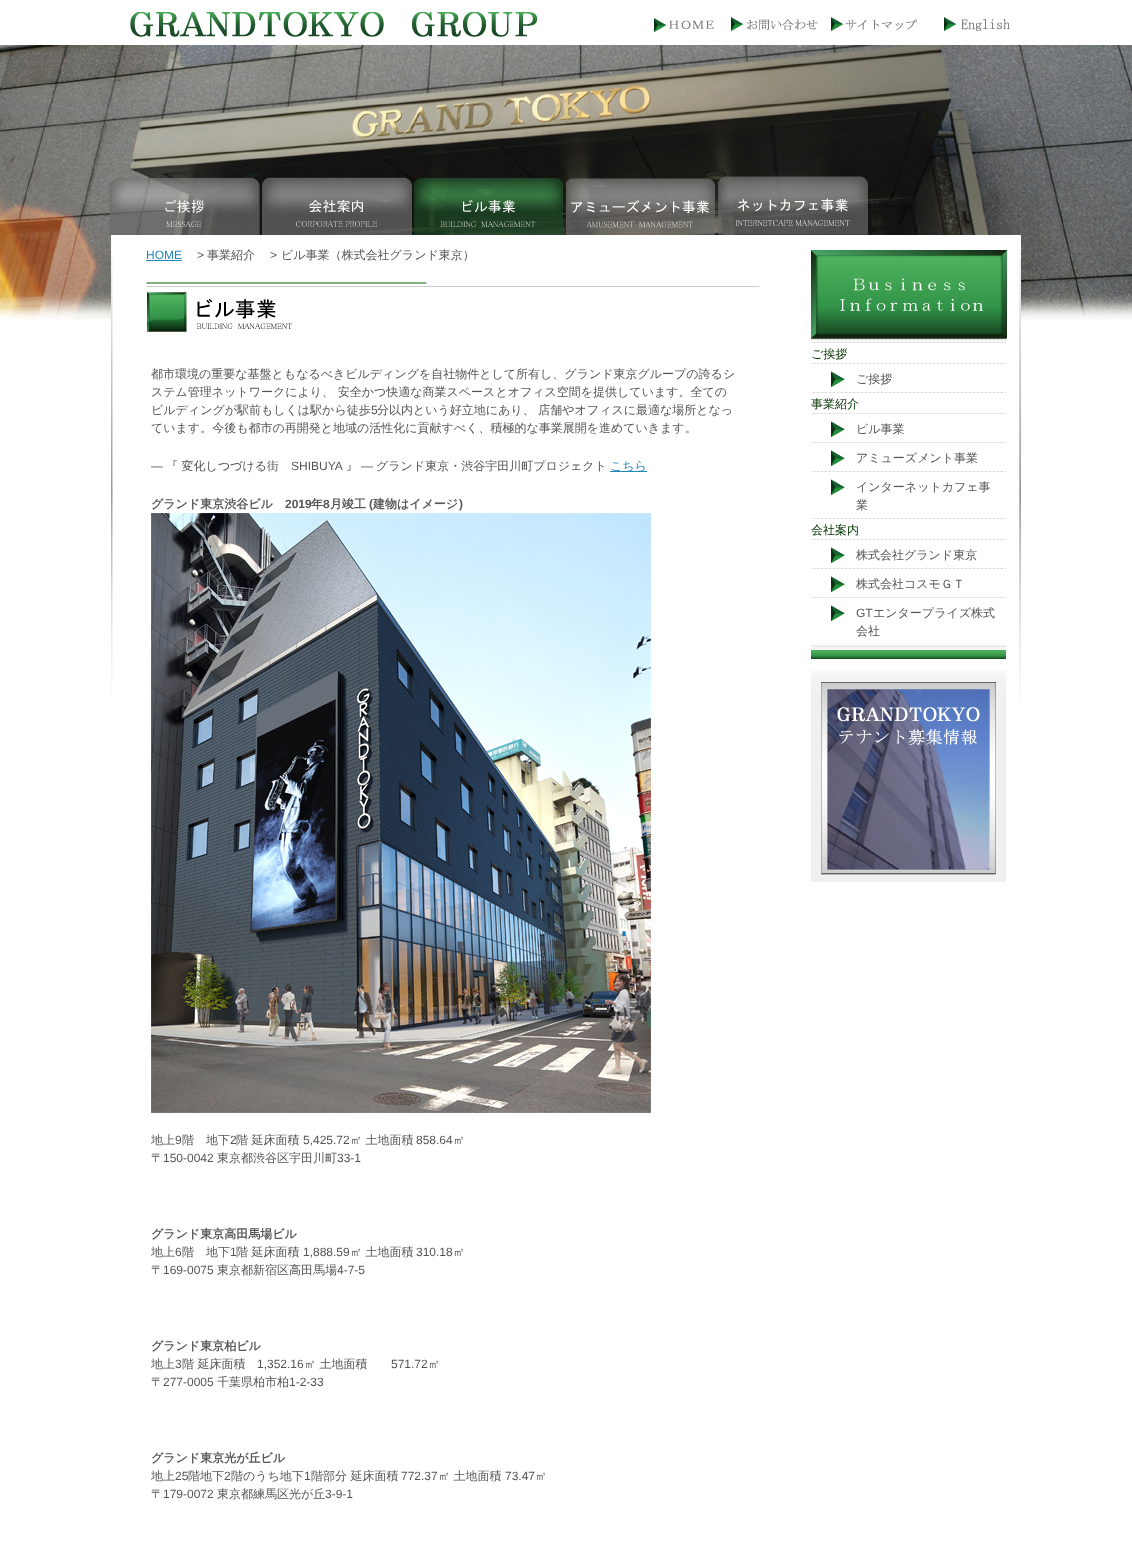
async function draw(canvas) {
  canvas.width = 1132;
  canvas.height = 1554;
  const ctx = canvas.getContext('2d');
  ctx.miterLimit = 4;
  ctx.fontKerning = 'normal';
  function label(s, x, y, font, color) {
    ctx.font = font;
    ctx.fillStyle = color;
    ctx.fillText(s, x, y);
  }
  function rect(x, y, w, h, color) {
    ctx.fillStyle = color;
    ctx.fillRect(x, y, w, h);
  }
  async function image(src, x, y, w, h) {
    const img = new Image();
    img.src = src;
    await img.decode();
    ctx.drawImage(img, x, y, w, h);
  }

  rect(0, 0, 1132, 1554, '#fff');
  await image('assets/img1.png', 130, 12, 407, 25);
  await image('assets/img2.png', 654, 17, 83, 16);
  await image('assets/img3.png', 737, 17, 95, 15);
  await image('assets/img4.png', 832, 17, 85, 14);
  await image('assets/img5.png', 944, 17, 66, 15);
  await image('assets/img6.png', 0, 45, 1132, 278);
  await image('assets/img7.png', 110, 177, 150, 58);
  await image('assets/img8.png', 262, 177, 150, 58);
  await image('assets/img9.png', 414, 178, 149, 57);
  await image('assets/img10.png', 566, 178, 150, 57);
  await image('assets/img11.png', 718, 176, 150, 59);
  await image('assets/img12.png', 111, 235, 910, 470);
  label('HOME', 146, 259, '12px Liberation Sans', '#28b');
  rect(146, 260, 36, 1, '#28b');
  label('>', 197, 259, '12px Liberation Sans', '#555');
  label('事業紹介', 207, 259, '500 12px WenQuanYi Zen Hei', '#555');
  label('>', 270, 259, '12px Liberation Sans', '#555');
  label('ビル事業（株式会社グランド東京）', 281, 259, '500 12px WenQuanYi Zen Hei', '#555');
  await image('assets/img13.png', 146, 282, 614, 50);
  label('都市環境の重要な基盤ともなるべきビルディングを自社物件として所有し、グランド東京グループの誇るシ', 151, 378, '500 12px WenQuanYi Zen Hei', '#555');
  label('ステム管理ネットワークにより、 安全かつ快適な商業スペースとオフィス空間を提供しています。全ての', 151, 396, '500 12px WenQuanYi Zen Hei', '#555');
  label('ビルディングが駅前もしくは駅から徒歩', 151, 414, '500 12px WenQuanYi Zen Hei', '#555');
  label('5', 371, 414, '12px Liberation Sans', '#555');
  label('分以内という好立地にあり、 店舗やオフィスに最適な場所となっ', 377, 414, '500 12px WenQuanYi Zen Hei', '#555');
  label('ています。今後も都市の再開発と地域の活性化に貢献すべく、積極的な事業展開を進めていきます。', 151, 432, '500 12px WenQuanYi Zen Hei', '#555');
  label('―', 151, 470, '12px Liberation Sans', '#555');
  label('『 変化しつづける街', 166, 470, '500 12px WenQuanYi Zen Hei', '#555');
  label('SHIBUYA', 291, 470, '12px Liberation Sans', '#555');
  label('』', 346, 470, '500 12px WenQuanYi Zen Hei', '#555');
  label('―', 361, 470, '12px Liberation Sans', '#555');
  label('グランド東京・渋谷宇田川町プロジェクト', 376, 470, '500 12px WenQuanYi Zen Hei', '#555');
  rect(610, 471, 37, 1, '#28b');
  label('こちら', 610, 470, '500 12px WenQuanYi Zen Hei', '#28b');
  label('グランド東京渋谷ビル', 151, 508, 'bold 12px WenQuanYi Zen Hei', '#555');
  label('2019', 285, 508, 'bold 12px Liberation Sans', '#555');
  label('年', 311, 508, 'bold 12px WenQuanYi Zen Hei', '#555');
  label('8', 323, 508, 'bold 12px Liberation Sans', '#555');
  label('月竣工', 330, 508, 'bold 12px WenQuanYi Zen Hei', '#555');
  label('(', 369, 508, 'bold 12px Liberation Sans', '#555');
  label('建物はイメージ', 373, 508, 'bold 12px WenQuanYi Zen Hei', '#555');
  label(')', 459, 508, 'bold 12px Liberation Sans', '#555');
  await image('assets/img14.png', 151, 513, 500, 600);
  label('地上', 151, 1144, '500 12px WenQuanYi Zen Hei', '#555');
  label('9', 175, 1144, '12px Liberation Sans', '#555');
  label('階　地下', 182, 1144, '500 12px WenQuanYi Zen Hei', '#555');
  label('2', 230, 1144, '12px Liberation Sans', '#555');
  label('階 延床面積', 236, 1144, '500 12px WenQuanYi Zen Hei', '#555');
  label('5,425.72', 303, 1144, '12px Liberation Sans', '#555');
  label('㎡ 土地面積', 350, 1144, '500 12px WenQuanYi Zen Hei', '#555');
  label('858.64', 416, 1144, '12px Liberation Sans', '#555');
  label('㎡', 453, 1144, '500 12px WenQuanYi Zen Hei', '#555');
  label('〒', 151, 1162, '500 12px WenQuanYi Zen Hei', '#555');
  label('150-0042', 163, 1162, '12px Liberation Sans', '#555');
  label('東京都渋谷区宇田川町', 217, 1162, '500 12px WenQuanYi Zen Hei', '#555');
  label('33-1', 337, 1162, '12px Liberation Sans', '#555');
  label('グランド東京高田馬場ビル', 151, 1238, 'bold 12px WenQuanYi Zen Hei', '#555');
  label('地上', 151, 1256, '500 12px WenQuanYi Zen Hei', '#555');
  label('6', 175, 1256, '12px Liberation Sans', '#555');
  label('階　地下', 182, 1256, '500 12px WenQuanYi Zen Hei', '#555');
  label('1', 230, 1256, '12px Liberation Sans', '#555');
  label('階 延床面積', 236, 1256, '500 12px WenQuanYi Zen Hei', '#555');
  label('1,888.59', 303, 1256, '12px Liberation Sans', '#555');
  label('㎡ 土地面積', 350, 1256, '500 12px WenQuanYi Zen Hei', '#555');
  label('310.18', 416, 1256, '12px Liberation Sans', '#555');
  label('㎡', 453, 1256, '500 12px WenQuanYi Zen Hei', '#555');
  label('〒', 151, 1274, '500 12px WenQuanYi Zen Hei', '#555');
  label('169-0075', 163, 1274, '12px Liberation Sans', '#555');
  label('東京都新宿区高田馬場', 217, 1274, '500 12px WenQuanYi Zen Hei', '#555');
  label('4-7-5', 337, 1274, '12px Liberation Sans', '#555');
  label('グランド東京柏ビル', 151, 1350, 'bold 12px WenQuanYi Zen Hei', '#555');
  label('地上', 151, 1368, '500 12px WenQuanYi Zen Hei', '#555');
  label('3', 175, 1368, '12px Liberation Sans', '#555');
  label('階 延床面積', 182, 1368, '500 12px WenQuanYi Zen Hei', '#555');
  label('1,352.16', 257, 1368, '12px Liberation Sans', '#555');
  label('㎡ 土地面積', 304, 1368, '500 12px WenQuanYi Zen Hei', '#555');
  label('571.72', 391, 1368, '12px Liberation Sans', '#555');
  label('㎡', 428, 1368, '500 12px WenQuanYi Zen Hei', '#555');
  label('〒', 151, 1386, '500 12px WenQuanYi Zen Hei', '#555');
  label('277-0005', 163, 1386, '12px Liberation Sans', '#555');
  label('千葉県柏市柏', 217, 1386, '500 12px WenQuanYi Zen Hei', '#555');
  label('1-2-33', 289, 1386, '12px Liberation Sans', '#555');
  label('グランド東京光が丘ビル', 151, 1462, 'bold 12px WenQuanYi Zen Hei', '#555');
  label('地上', 151, 1480, '500 12px WenQuanYi Zen Hei', '#555');
  label('25', 175, 1480, '12px Liberation Sans', '#555');
  label('階地下', 188, 1480, '500 12px WenQuanYi Zen Hei', '#555');
  label('2', 224, 1480, '12px Liberation Sans', '#555');
  label('階のうち地下', 231, 1480, '500 12px WenQuanYi Zen Hei', '#555');
  label('1', 304, 1480, '12px Liberation Sans', '#555');
  label('階部分 延床面積', 311, 1480, '500 12px WenQuanYi Zen Hei', '#555');
  label('772.37', 401, 1480, '12px Liberation Sans', '#555');
  label('㎡ 土地面積', 438, 1480, '500 12px WenQuanYi Zen Hei', '#555');
  label('73.47', 505, 1480, '12px Liberation Sans', '#555');
  label('㎡', 535, 1480, '500 12px WenQuanYi Zen Hei', '#555');
  label('〒', 151, 1498, '500 12px WenQuanYi Zen Hei', '#555');
  label('179-0072', 163, 1498, '12px Liberation Sans', '#555');
  label('東京都練馬区光が丘', 217, 1498, '500 12px WenQuanYi Zen Hei', '#555');
  label('3-9-1', 325, 1498, '12px Liberation Sans', '#555');
  rect(811, 339, 195, 311, '#f6f6f6');
  await image('assets/img15.png', 811, 650, 195, 9);
  await image('assets/img16.png', 811, 646, 195, 1);
  await image('assets/img17.png', 811, 250, 196, 89);
  await image('assets/img16.png', 811, 339, 195, 1);
  rect(811, 342, 195, 302, '#fff');
  await image('assets/img18.png', 811, 342, 195, 1);
  label('ご挨拶', 811, 358, '500 12px WenQuanYi Zen Hei', '#030');
  await image('assets/img18.png', 811, 363, 195, 1);
  await image('assets/img19.png', 831, 371, 14, 17);
  label('ご挨拶', 856, 383, '500 12px WenQuanYi Zen Hei', '#555');
  await image('assets/img18.png', 811, 392, 195, 1);
  label('事業紹介', 811, 408, '500 12px WenQuanYi Zen Hei', '#030');
  await image('assets/img18.png', 811, 413, 195, 1);
  await image('assets/img19.png', 831, 421, 14, 17);
  label('ビル事業', 856, 433, '500 12px WenQuanYi Zen Hei', '#555');
  await image('assets/img18.png', 811, 442, 195, 1);
  await image('assets/img19.png', 831, 450, 14, 17);
  label('アミューズメント事業', 856, 462, '500 12px WenQuanYi Zen Hei', '#555');
  await image('assets/img18.png', 811, 471, 195, 1);
  await image('assets/img19.png', 831, 479, 14, 17);
  label('インターネットカフェ事', 856, 491, '500 12px WenQuanYi Zen Hei', '#555');
  label('業', 856, 509, '500 12px WenQuanYi Zen Hei', '#555');
  await image('assets/img18.png', 811, 518, 195, 1);
  label('会社案内', 811, 534, '500 12px WenQuanYi Zen Hei', '#030');
  await image('assets/img18.png', 811, 539, 195, 1);
  await image('assets/img19.png', 831, 547, 14, 17);
  label('株式会社グランド東京', 856, 559, '500 12px WenQuanYi Zen Hei', '#555');
  await image('assets/img18.png', 811, 568, 195, 1);
  await image('assets/img19.png', 831, 576, 14, 17);
  label('株式会社コスモＧＴ', 856, 588, '500 12px WenQuanYi Zen Hei', '#555');
  await image('assets/img18.png', 811, 597, 195, 1);
  await image('assets/img19.png', 831, 605, 14, 17);
  label('GT', 856, 617, '12px Liberation Sans', '#555');
  label('エンタープライズ株式', 873, 617, '500 12px WenQuanYi Zen Hei', '#555');
  label('会社', 856, 635, '500 12px WenQuanYi Zen Hei', '#555');
  await image('assets/img20.png', 811, 670, 195, 212);
  await image('assets/img21.png', 821, 682, 175, 193);
}

draw(document.querySelector('canvas'));
